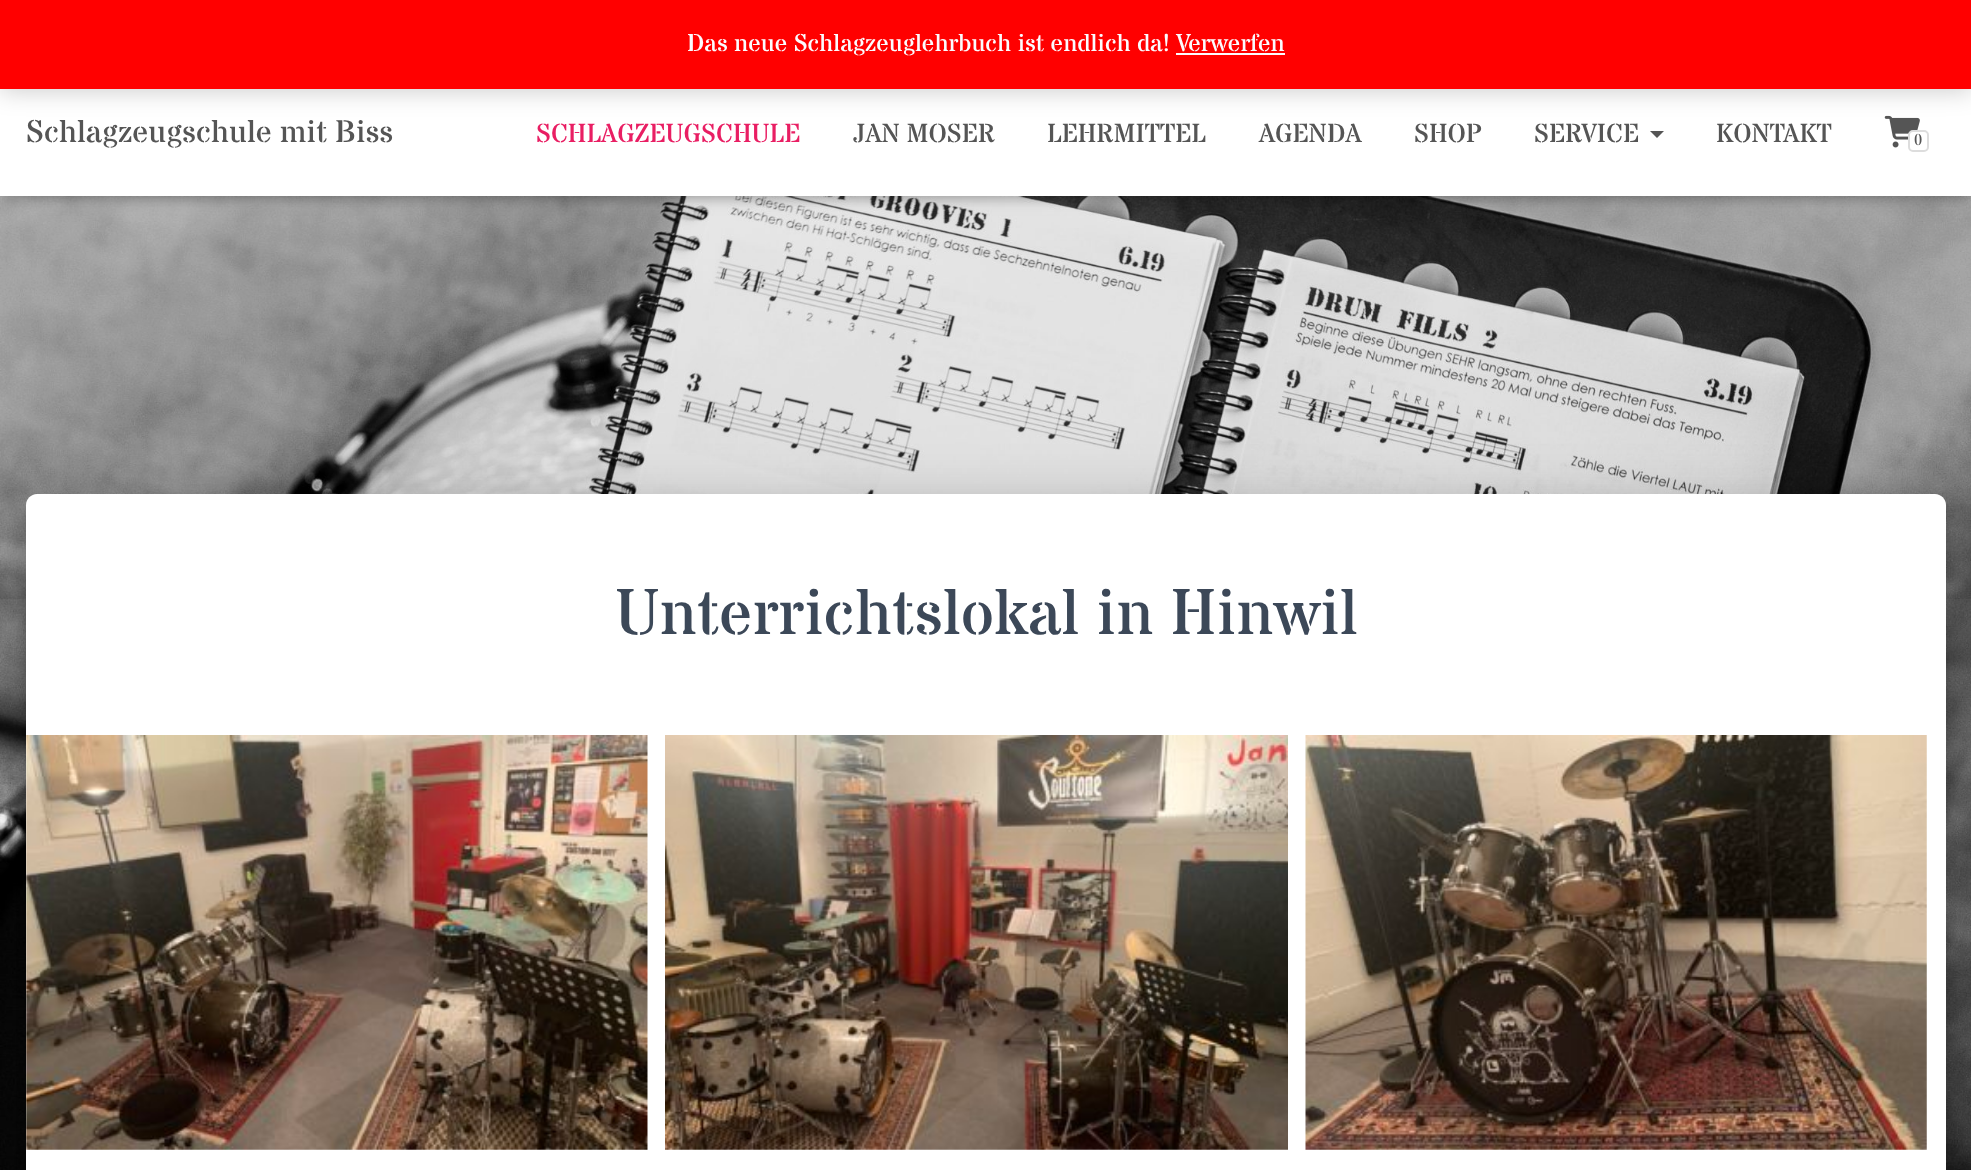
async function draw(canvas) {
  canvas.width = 1971;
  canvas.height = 1170;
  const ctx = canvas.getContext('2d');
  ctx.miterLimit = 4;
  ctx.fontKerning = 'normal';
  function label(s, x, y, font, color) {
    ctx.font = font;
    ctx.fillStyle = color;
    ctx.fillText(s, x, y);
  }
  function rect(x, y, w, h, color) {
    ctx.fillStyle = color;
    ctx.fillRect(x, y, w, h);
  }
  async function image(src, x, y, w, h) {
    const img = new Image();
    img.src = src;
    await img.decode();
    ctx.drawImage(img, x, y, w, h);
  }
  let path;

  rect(0, 0, 1971, 1170, '#fff');
  await image('assets/img1.png', 0, 196, 1971, 974);
  rect(0, 196, 1971, 403, '#00000014');
  ctx.fillStyle = '#0000001a';
  ctx.filter = 'blur(4.5px)';
  ctx.beginPath();
  ctx.rect(4, 81, 1965, 119);
  ctx.fill();
  ctx.filter = 'none';
  ctx.fillStyle = '#0000001f';
  ctx.filter = 'blur(9px)';
  ctx.beginPath();
  ctx.rect(0, 72, 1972, 126);
  ctx.fill();
  ctx.filter = 'none';
  ctx.fillStyle = '#0000006b';
  ctx.filter = 'blur(9px)';
  ctx.beginPath();
  ctx.rect(11, 82, 1951, 105);
  ctx.fill();
  ctx.filter = 'none';
  rect(0, 89, 1971, 107, '#fff');
  await image('assets/img2.png', 1884, 115, 36, 33);
  ctx.fillStyle = '#00000033';
  ctx.filter = 'blur(12px)';
  ctx.beginPath();
  ctx.rect(0, 2, 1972, 89);
  ctx.fill();
  ctx.filter = 'none';
  rect(0, 0, 1971, 89, '#f00');
  label('Das neue Schlagzeuglehrbuch ist endlich da! Verwerfen', 687, 51, '24.5px Stardos Stencil', '#fcfbfe');
  rect(1176, 53, 109, 2, '#fcfbfe');
  label('Schlagzeugschule mit Biss', 26, 142, '31.5px Stardos Stencil', '#555');
  label('SCHLAGZEUGSCHULE', 536, 142, '26.25px Stardos Stencil', '#e91e63');
  label('JAN MOSER', 853, 142, '26.25px Stardos Stencil', '#555');
  label('LEHRMITTEL', 1047, 142, '26.25px Stardos Stencil', '#555');
  label('AGENDA', 1259, 142, '26.25px Stardos Stencil', '#555');
  label('SHOP', 1414, 142, '26.25px Stardos Stencil', '#555');
  label('SERVICE', 1534, 142, '26.25px Stardos Stencil', '#555');
  path = new Path2D('M1650 131H1664L1657 138Z');
  ctx.fill(path);
  label('KONTAKT', 1716, 142, '26.25px Stardos Stencil', '#555');
  ctx.fillStyle = '#fff';
  ctx.beginPath();
  ctx.roundRect(1909, 131, 19, 20, 4);
  ctx.fill();
  ctx.strokeStyle = '#ddd';
  ctx.lineWidth = 2;
  ctx.stroke();
  label('0', 1914, 145, '16px Stardos Stencil', '#555');
  ctx.fillStyle = '#00000033';
  ctx.filter = 'blur(9px)';
  ctx.beginPath();
  ctx.roundRect(35, 516, 1902, 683, 2);
  ctx.fill();
  ctx.filter = 'none';
  ctx.fillStyle = '#0000001f';
  ctx.filter = 'blur(26px)';
  ctx.beginPath();
  ctx.roundRect(18, 495, 1937, 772, 19);
  ctx.fill();
  ctx.filter = 'none';
  ctx.fillStyle = '#00000024';
  ctx.filter = 'blur(21px)';
  ctx.beginPath();
  ctx.roundRect(23, 518, 1927, 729, 14);
  ctx.fill();
  ctx.filter = 'none';
  ctx.fillStyle = '#fff';
  path = new Path2D('M37 494H1935C1941 494 1946 499 1946 505V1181H26V505C26 499 31 494 37 494Z');
  ctx.fill(path);
  label('Unterrichtslokal in Hinwil', 615, 634, '64.75px Stardos Stencil', '#3c4858');
  await image('assets/img3.png', 26, 735, 622, 415);
  await image('assets/img4.png', 665, 735, 623, 415);
  await image('assets/img5.png', 1305, 735, 622, 415);
}

draw(document.querySelector('canvas'));
